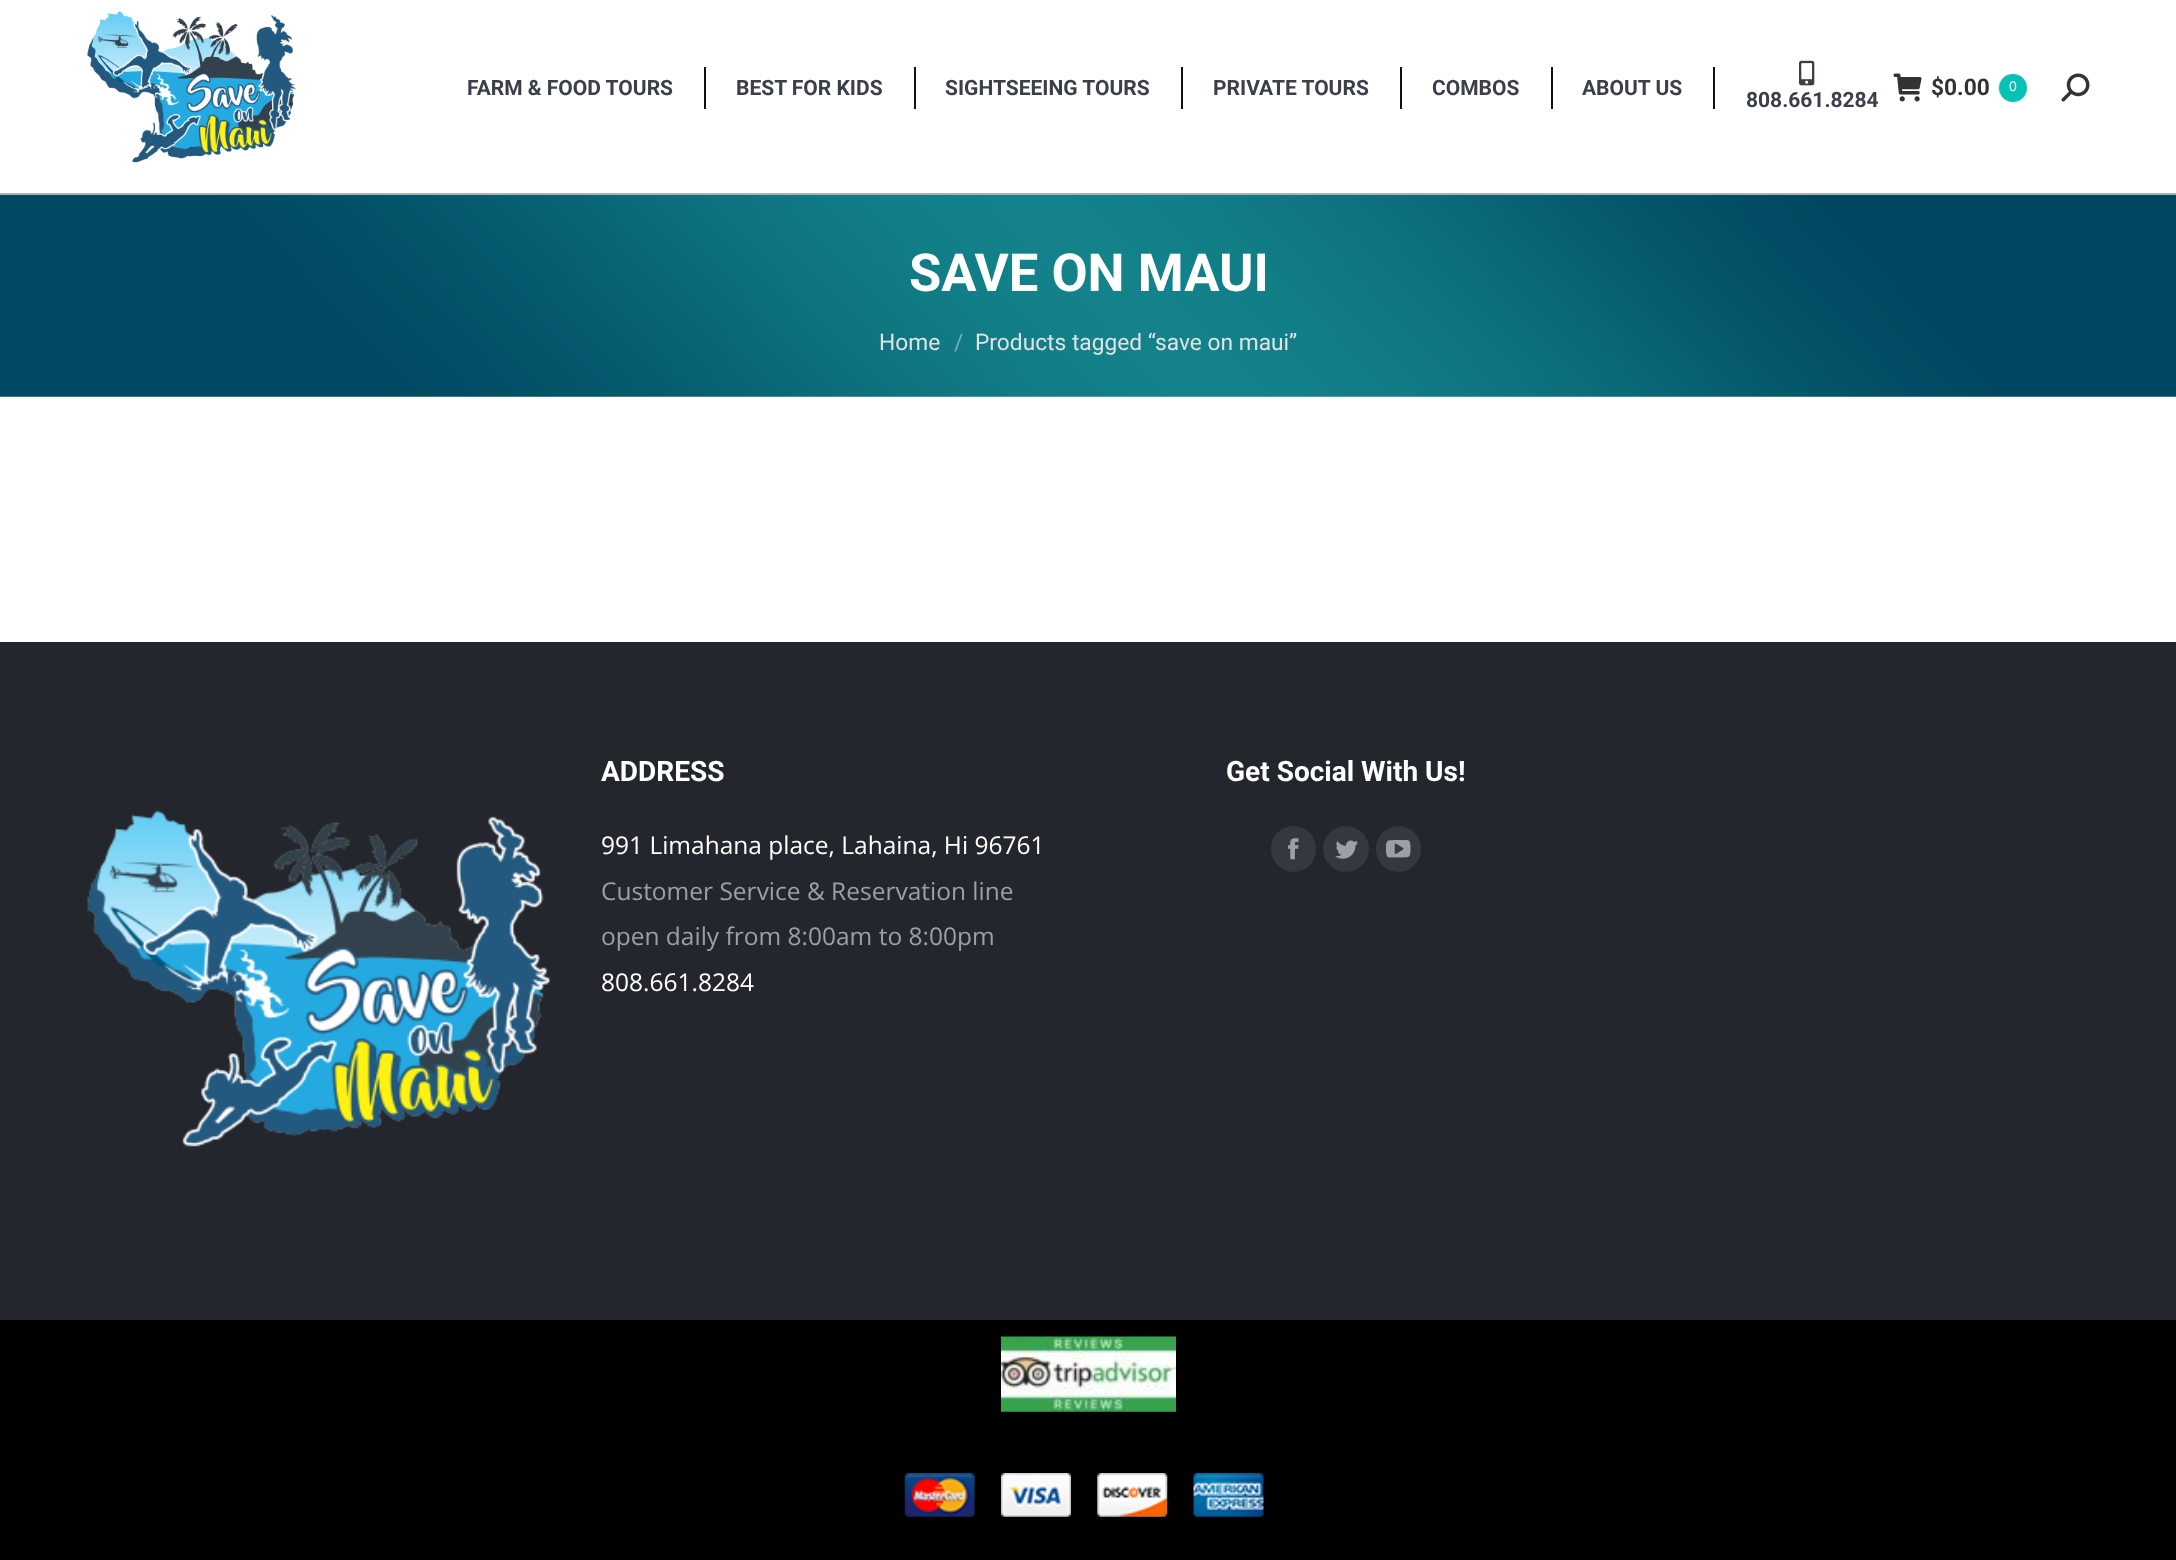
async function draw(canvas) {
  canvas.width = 2176;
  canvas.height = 1560;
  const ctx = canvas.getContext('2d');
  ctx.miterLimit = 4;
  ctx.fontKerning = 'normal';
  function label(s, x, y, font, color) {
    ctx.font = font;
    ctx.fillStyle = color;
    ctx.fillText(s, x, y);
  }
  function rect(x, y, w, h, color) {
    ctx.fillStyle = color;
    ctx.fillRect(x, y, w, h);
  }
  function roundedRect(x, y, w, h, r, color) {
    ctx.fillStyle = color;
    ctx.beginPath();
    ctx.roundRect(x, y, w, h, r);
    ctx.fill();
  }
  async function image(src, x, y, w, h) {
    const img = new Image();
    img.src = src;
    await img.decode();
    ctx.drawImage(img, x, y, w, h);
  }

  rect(0, 0, 2176, 1560, '#fff');
  rect(0, 193, 2176, 2, '#adb0b6');
  await image('assets/img1.png', 87, 11, 210, 152);
  label('FARM & FOOD TOURS', 467, 95, 'bold 21px Roboto', '#3b3f4a');
  rect(704, 67, 2, 42, '#111');
  label('BEST FOR KIDS', 736, 95, 'bold 21px Roboto', '#3b3f4a');
  rect(914, 67, 2, 42, '#111');
  label('SIGHTSEEING TOURS', 945, 95, 'bold 21px Roboto', '#3b3f4a');
  rect(1181, 67, 2, 42, '#111');
  label('PRIVATE TOURS', 1213, 95, 'bold 21px Roboto', '#3b3f4a');
  rect(1400, 67, 2, 42, '#111');
  label('COMBOS', 1432, 95, 'bold 21px Roboto', '#3b3f4a');
  rect(1551, 67, 2, 42, '#111');
  label('ABOUT US', 1582, 95, 'bold 21px Roboto', '#3b3f4a');
  rect(1713, 67, 2, 42, '#111');
  await image('assets/img2.png', 1799, 60, 16, 26);
  label('808.661.8284', 1746, 107, 'bold 21px Roboto', '#3b3f4a');
  await image('assets/img3.png', 1893, 73, 29, 29);
  label('$0.00', 1931, 95, 'bold 22.75px Roboto', '#333');
  ctx.fillStyle = '#07c1b6';
  ctx.beginPath();
  ctx.arc(2013, 88, 14, 0, 2 * Math.PI);
  ctx.fill();
  label('0', 2009, 91, '14px Liberation Sans', '#fff');
  await image('assets/img4.png', 2061, 73, 29, 29);
  await image('assets/img5.png', 0, 195, 2176, 202);
  label('SAVE ON MAUI', 909, 291, 'bold 52.5px Roboto', '#fff');
  label('Home', 879, 350, '22.75px Roboto', '#e2e2e2');
  label('/', 954, 350, '22.75px Roboto', '#79aeb3');
  label('Products tagged “save on maui”', 975, 350, '22.75px Roboto', '#e2e2e2');
  rect(0, 642, 2176, 678, '#23262d');
  label('ADDRESS', 601, 781, 'bold 28px Roboto', '#fff');
  label('991 Limahana place, Lahaina, Hi 96761', 601, 854, '24.5px Open Sans', '#fff');
  label('Customer Service & Reservation line', 601, 900, '24.5px Open Sans', '#9aa0a7');
  label('open daily from 8:00am to 8:00pm', 601, 945, '24.5px Open Sans', '#9aa0a7');
  label('808.661.8284', 601, 991, '24.5px Open Sans', '#fff');
  label('Get Social With Us!', 1226, 781, 'bold 28px Roboto', '#fff');
  roundedRect(1271, 826, 45, 46, 22.5, '#35383f');
  await image('assets/img6.png', 1288, 838, 11, 22);
  ctx.beginPath();
  ctx.arc(1346, 849, 23, 0, 2 * Math.PI);
  ctx.fill();
  await image('assets/img7.png', 1335, 840, 23, 19);
  roundedRect(1376, 826, 45, 46, 22.5, '#35383f');
  await image('assets/img8.png', 1386, 840, 25, 18);
  await image('assets/img9.png', 87, 810, 463, 337);
  rect(0, 1320, 2176, 240, '#000');
  await image('assets/img10.png', 1001, 1336, 175, 76);
  await image('assets/img11.png', 904, 1473, 71, 44);
  await image('assets/img12.png', 1001, 1473, 70, 44);
  await image('assets/img13.png', 1097, 1473, 71, 44);
  await image('assets/img14.png', 1193, 1473, 71, 44);
}

draw(document.querySelector('canvas'));
